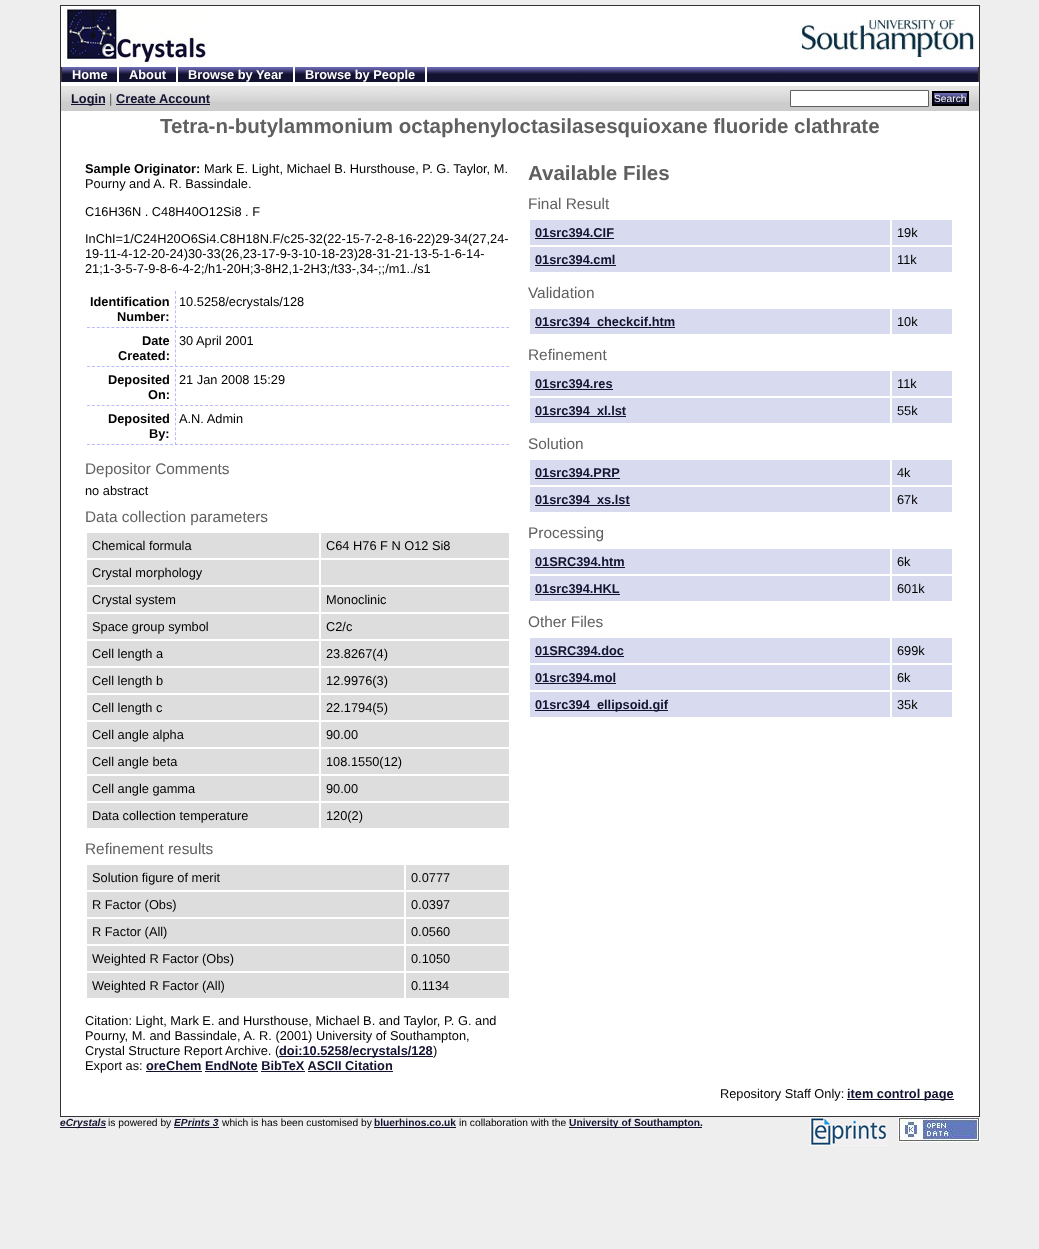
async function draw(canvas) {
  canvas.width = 1039;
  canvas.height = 1249;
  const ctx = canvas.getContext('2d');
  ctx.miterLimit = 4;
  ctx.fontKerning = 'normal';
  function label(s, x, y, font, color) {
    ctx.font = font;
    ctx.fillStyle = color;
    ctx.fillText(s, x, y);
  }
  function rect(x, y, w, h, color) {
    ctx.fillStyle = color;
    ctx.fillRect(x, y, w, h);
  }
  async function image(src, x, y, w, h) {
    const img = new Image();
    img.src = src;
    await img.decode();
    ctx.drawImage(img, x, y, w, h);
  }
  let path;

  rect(0, 0, 1039, 1249, '#eee');
  rect(61, 6, 918, 61, '#fff');
  rect(60, 5, 920, 1, '#333');
  rect(979, 5, 1, 1111, '#333');
  rect(60, 5, 1, 1111, '#333');
  await image('assets/img1.png', 64, 9, 142, 55);
  await image('assets/img2.png', 799, 17, 176, 40);
  await image('assets/img3.png', 62, 67, 916, 15);
  rect(978, 67, 1, 15, '#333');
  rect(61, 67, 1, 15, '#333');
  label('Home', 72, 79, 'bold 12.8px Liberation Sans', '#fff');
  rect(117, 67, 2, 15, '#fff');
  label('About', 129, 79, 'bold 12.8px Liberation Sans', '#fff');
  rect(176, 67, 2, 15, '#fff');
  label('Browse by Year', 188, 79, 'bold 12.8px Liberation Sans', '#fff');
  rect(293, 67, 2, 15, '#fff');
  label('Browse by People', 305, 79, 'bold 12.8px Liberation Sans', '#fff');
  rect(425, 67, 2, 15, '#fff');
  rect(61, 102, 918, 9, '#ccc');
  await image('assets/img4.png', 61, 86, 918, 16);
  rect(61, 82, 918, 4, '#fff');
  rect(71, 104, 34, 1, '#131231');
  label('Login', 71, 103, 'bold 12.8px Liberation Sans', '#131231');
  label('|', 109, 103, '12.8px Liberation Sans', '#606060');
  label('Create Account', 116, 103, 'bold 12.8px Liberation Sans', '#131231');
  rect(116, 104, 94, 1, '#131231');
  ctx.fillStyle = '#fff';
  ctx.beginPath();
  ctx.rect(790.5, 90.5, 138, 16);
  ctx.fill();
  ctx.strokeStyle = '#606060';
  ctx.stroke();
  await image('assets/img5.png', 934, 93, 33, 11);
  ctx.strokeStyle = '#000';
  ctx.lineWidth = 2;
  ctx.strokeRect(933, 92, 35, 13);
  label('Search', 934, 102, '10.25px Liberation Sans', '#fff');
  rect(61, 111, 918, 1005, '#fff');
  label('Tetra-n-butylammonium octaphenyloctasilasesquioxane fluoride clathrate', 160, 133, 'bold 20.5px Liberation Sans', '#606060');
  label('Sample Originator:', 85, 173, 'bold 12.8px Liberation Sans', '#000');
  label('Mark E. Light, Michael B. Hursthouse, P. G. Taylor, M.', 204, 173, '12.8px Liberation Sans', '#000');
  label('Pourny and A. R. Bassindale.', 85, 188, '12.8px Liberation Sans', '#000');
  label('C16H36N . C48H40O12Si8 . F', 85, 216, '12.8px Liberation Sans', '#000');
  label('InChI=1/C24H20O6Si4.C8H18N.F/c25-32(22-15-7-2-8-16-22)29-34(27,24-', 85, 243, '12.8px Liberation Sans', '#000');
  label('19-11-4-12-20-24)30-33(26,23-17-9-3-10-18-23)28-31-21-13-5-1-6-14-', 85, 258, '12.8px Liberation Sans', '#000');
  label('21;1-3-5-7-9-8-6-4-2;/h1-20H;3-8H2,1-2H3;/t33-,34-;;/m1../s1', 85, 273, '12.8px Liberation Sans', '#000');
  path = new Path2D('M87 327.5H173');
  ctx.strokeStyle = '#bbf';
  ctx.lineWidth = 1;
  ctx.setLineDash([3, 1.88]);
  ctx.stroke(path);
  label('Identification', 90, 306, 'bold 12.8px Liberation Sans', '#000');
  label('Number:', 117, 321, 'bold 12.8px Liberation Sans', '#000');
  path = new Path2D('M175 327.5H509');
  ctx.setLineDash([3, 2.02]);
  ctx.stroke(path);
  path = new Path2D('M175.5 291V328');
  ctx.setLineDash([3, 1.86]);
  ctx.stroke(path);
  label('10.5258/ecrystals/128', 179, 306, '12.8px Liberation Sans', '#000');
  path = new Path2D('M87 366.5H173');
  ctx.setLineDash([3, 1.88]);
  ctx.stroke(path);
  label('Date', 142, 345, 'bold 12.8px Liberation Sans', '#000');
  label('Created:', 118, 360, 'bold 12.8px Liberation Sans', '#000');
  path = new Path2D('M175 366.5H509');
  ctx.setLineDash([3, 2.02]);
  ctx.stroke(path);
  path = new Path2D('M175.5 330V367');
  ctx.setLineDash([3, 1.86]);
  ctx.stroke(path);
  label('30 April 2001', 179, 345, '12.8px Liberation Sans', '#000');
  path = new Path2D('M87 405.5H173');
  ctx.setLineDash([3, 1.88]);
  ctx.stroke(path);
  label('Deposited', 108, 384, 'bold 12.8px Liberation Sans', '#000');
  label('On:', 148, 399, 'bold 12.8px Liberation Sans', '#000');
  path = new Path2D('M175 405.5H509');
  ctx.setLineDash([3, 2.02]);
  ctx.stroke(path);
  path = new Path2D('M175.5 369V406');
  ctx.setLineDash([3, 1.86]);
  ctx.stroke(path);
  label('21 Jan 2008 15:29', 179, 384, '12.8px Liberation Sans', '#000');
  path = new Path2D('M87 444.5H173');
  ctx.setLineDash([3, 1.88]);
  ctx.stroke(path);
  label('Deposited', 108, 423, 'bold 12.8px Liberation Sans', '#000');
  label('By:', 149, 438, 'bold 12.8px Liberation Sans', '#000');
  path = new Path2D('M175 444.5H509');
  ctx.setLineDash([3, 2.02]);
  ctx.stroke(path);
  path = new Path2D('M175.5 408V445');
  ctx.setLineDash([3, 1.86]);
  ctx.stroke(path);
  label('A.N. Admin', 179, 423, '12.8px Liberation Sans', '#000');
  label('Depositor Comments', 85, 474, '15.4px Liberation Sans', '#606060');
  label('no abstract', 85, 495, '12.8px Liberation Sans', '#000');
  label('Data collection parameters', 85, 522, '15.4px Liberation Sans', '#606060');
  rect(87, 533, 232, 25, '#ddd');
  label('Chemical formula', 92, 550, '12.8px Liberation Sans', '#000');
  rect(321, 533, 188, 25, '#ddd');
  label('C64 H76 F N O12 Si8', 326, 550, '12.8px Liberation Sans', '#000');
  rect(87, 560, 232, 25, '#ddd');
  label('Crystal morphology', 92, 577, '12.8px Liberation Sans', '#000');
  rect(321, 560, 188, 25, '#ddd');
  rect(87, 587, 232, 25, '#ddd');
  label('Crystal system', 92, 604, '12.8px Liberation Sans', '#000');
  rect(321, 587, 188, 25, '#ddd');
  label('Monoclinic', 326, 604, '12.8px Liberation Sans', '#000');
  rect(87, 614, 232, 25, '#ddd');
  label('Space group symbol', 92, 631, '12.8px Liberation Sans', '#000');
  rect(321, 614, 188, 25, '#ddd');
  label('C2/c', 326, 631, '12.8px Liberation Sans', '#000');
  rect(87, 641, 232, 25, '#ddd');
  label('Cell length a', 92, 658, '12.8px Liberation Sans', '#000');
  rect(321, 641, 188, 25, '#ddd');
  label('23.8267(4)', 326, 658, '12.8px Liberation Sans', '#000');
  rect(87, 668, 232, 25, '#ddd');
  label('Cell length b', 92, 685, '12.8px Liberation Sans', '#000');
  rect(321, 668, 188, 25, '#ddd');
  label('12.9976(3)', 326, 685, '12.8px Liberation Sans', '#000');
  rect(87, 695, 232, 25, '#ddd');
  label('Cell length c', 92, 712, '12.8px Liberation Sans', '#000');
  rect(321, 695, 188, 25, '#ddd');
  label('22.1794(5)', 326, 712, '12.8px Liberation Sans', '#000');
  rect(87, 722, 232, 25, '#ddd');
  label('Cell angle alpha', 92, 739, '12.8px Liberation Sans', '#000');
  rect(321, 722, 188, 25, '#ddd');
  label('90.00', 326, 739, '12.8px Liberation Sans', '#000');
  rect(87, 749, 232, 25, '#ddd');
  label('Cell angle beta', 92, 766, '12.8px Liberation Sans', '#000');
  rect(321, 749, 188, 25, '#ddd');
  label('108.1550(12)', 326, 766, '12.8px Liberation Sans', '#000');
  rect(87, 776, 232, 25, '#ddd');
  label('Cell angle gamma', 92, 793, '12.8px Liberation Sans', '#000');
  rect(321, 776, 188, 25, '#ddd');
  label('90.00', 326, 793, '12.8px Liberation Sans', '#000');
  rect(87, 803, 232, 25, '#ddd');
  label('Data collection temperature', 92, 820, '12.8px Liberation Sans', '#000');
  rect(321, 803, 188, 25, '#ddd');
  label('120(2)', 326, 820, '12.8px Liberation Sans', '#000');
  label('Refinement results', 85, 854, '15.4px Liberation Sans', '#606060');
  rect(87, 865, 317, 25, '#ddd');
  label('Solution figure of merit', 92, 882, '12.8px Liberation Sans', '#000');
  rect(406, 865, 103, 25, '#ddd');
  label('0.0777', 411, 882, '12.8px Liberation Sans', '#000');
  rect(87, 892, 317, 25, '#ddd');
  label('R Factor (Obs)', 92, 909, '12.8px Liberation Sans', '#000');
  rect(406, 892, 103, 25, '#ddd');
  label('0.0397', 411, 909, '12.8px Liberation Sans', '#000');
  rect(87, 919, 317, 25, '#ddd');
  label('R Factor (All)', 92, 936, '12.8px Liberation Sans', '#000');
  rect(406, 919, 103, 25, '#ddd');
  label('0.0560', 411, 936, '12.8px Liberation Sans', '#000');
  rect(87, 946, 317, 25, '#ddd');
  label('Weighted R Factor (Obs)', 92, 963, '12.8px Liberation Sans', '#000');
  rect(406, 946, 103, 25, '#ddd');
  label('0.1050', 411, 963, '12.8px Liberation Sans', '#000');
  rect(87, 973, 317, 25, '#ddd');
  label('Weighted R Factor (All)', 92, 990, '12.8px Liberation Sans', '#000');
  rect(406, 973, 103, 25, '#ddd');
  label('0.1134', 411, 990, '12.8px Liberation Sans', '#000');
  label('Citation: Light, Mark E. and Hursthouse, Michael B. and Taylor, P. G. and', 85, 1025, '12.8px Liberation Sans', '#000');
  label('Pourny, M. and Bassindale, A. R. (2001) University of Southampton,', 85, 1040, '12.8px Liberation Sans', '#000');
  label('Crystal Structure Report Archive. (', 85, 1055, '12.8px Liberation Sans', '#000');
  rect(279, 1056, 154, 1, '#131231');
  label('doi:10.5258/ecrystals/128', 279, 1055, 'bold 12.8px Liberation Sans', '#131231');
  label(')', 433, 1055, '12.8px Liberation Sans', '#000');
  label('Export as:', 85, 1070, '12.8px Liberation Sans', '#000');
  label('oreChem EndNote BibTeX ASCII Citation', 146, 1070, 'bold 12.8px Liberation Sans', '#131231');
  rect(146, 1071, 56, 1, '#131231');
  rect(205, 1071, 53, 1, '#131231');
  rect(261, 1071, 44, 1, '#131231');
  rect(308, 1071, 85, 1, '#131231');
  label('Available Files', 528, 180, 'bold 20.5px Liberation Sans', '#606060');
  label('Final Result', 528, 209, '15.4px Liberation Sans', '#606060');
  rect(530, 220, 360, 25, '#d8dbef');
  label('01src394.CIF', 535, 237, 'bold 12.8px Liberation Sans', '#131231');
  rect(535, 238, 79, 1, '#131231');
  rect(892, 220, 60, 25, '#d8dbef');
  label('19k', 897, 237, '12.8px Liberation Sans', '#000');
  rect(530, 247, 360, 25, '#d8dbef');
  label('01src394.cml', 535, 264, 'bold 12.8px Liberation Sans', '#131231');
  rect(535, 265, 81, 1, '#131231');
  rect(892, 247, 60, 25, '#d8dbef');
  label('11k', 897, 264, '12.8px Liberation Sans', '#000');
  label('Validation', 528, 298, '15.4px Liberation Sans', '#606060');
  rect(530, 309, 360, 25, '#d8dbef');
  rect(535, 327, 140, 1, '#131231');
  label('01src394_checkcif.htm', 535, 326, 'bold 12.8px Liberation Sans', '#131231');
  rect(892, 309, 60, 25, '#d8dbef');
  label('10k', 897, 326, '12.8px Liberation Sans', '#000');
  label('Refinement', 528, 360, '15.4px Liberation Sans', '#606060');
  rect(530, 371, 360, 25, '#d8dbef');
  label('01src394.res', 535, 388, 'bold 12.8px Liberation Sans', '#131231');
  rect(535, 389, 78, 1, '#131231');
  rect(892, 371, 60, 25, '#d8dbef');
  label('11k', 897, 388, '12.8px Liberation Sans', '#000');
  rect(530, 398, 360, 25, '#d8dbef');
  rect(535, 416, 91, 1, '#131231');
  label('01src394_xl.lst', 535, 415, 'bold 12.8px Liberation Sans', '#131231');
  rect(892, 398, 60, 25, '#d8dbef');
  label('55k', 897, 415, '12.8px Liberation Sans', '#000');
  label('Solution', 528, 449, '15.4px Liberation Sans', '#606060');
  rect(530, 460, 360, 25, '#d8dbef');
  label('01src394.PRP', 535, 477, 'bold 12.8px Liberation Sans', '#131231');
  rect(535, 478, 85, 1, '#131231');
  rect(892, 460, 60, 25, '#d8dbef');
  label('4k', 897, 477, '12.8px Liberation Sans', '#000');
  rect(530, 487, 360, 25, '#d8dbef');
  rect(535, 505, 95, 1, '#131231');
  label('01src394_xs.lst', 535, 504, 'bold 12.8px Liberation Sans', '#131231');
  rect(892, 487, 60, 25, '#d8dbef');
  label('67k', 897, 504, '12.8px Liberation Sans', '#000');
  label('Processing', 528, 538, '15.4px Liberation Sans', '#606060');
  rect(530, 549, 360, 25, '#d8dbef');
  label('01SRC394.htm', 535, 566, 'bold 12.8px Liberation Sans', '#131231');
  rect(535, 567, 90, 1, '#131231');
  rect(892, 549, 60, 25, '#d8dbef');
  label('6k', 897, 566, '12.8px Liberation Sans', '#000');
  rect(530, 576, 360, 25, '#d8dbef');
  label('01src394.HKL', 535, 593, 'bold 12.8px Liberation Sans', '#131231');
  rect(535, 594, 85, 1, '#131231');
  rect(892, 576, 60, 25, '#d8dbef');
  label('601k', 897, 593, '12.8px Liberation Sans', '#000');
  label('Other Files', 528, 627, '15.4px Liberation Sans', '#606060');
  rect(530, 638, 360, 25, '#d8dbef');
  label('01SRC394.doc', 535, 655, 'bold 12.8px Liberation Sans', '#131231');
  rect(535, 656, 89, 1, '#131231');
  rect(892, 638, 60, 25, '#d8dbef');
  label('699k', 897, 655, '12.8px Liberation Sans', '#000');
  rect(530, 665, 360, 25, '#d8dbef');
  label('01src394.mol', 535, 682, 'bold 12.8px Liberation Sans', '#131231');
  rect(535, 683, 81, 1, '#131231');
  rect(892, 665, 60, 25, '#d8dbef');
  label('6k', 897, 682, '12.8px Liberation Sans', '#000');
  rect(530, 692, 360, 25, '#d8dbef');
  rect(535, 710, 133, 1, '#131231');
  label('01src394_ellipsoid.gif', 535, 709, 'bold 12.8px Liberation Sans', '#131231');
  rect(892, 692, 60, 25, '#d8dbef');
  label('35k', 897, 709, '12.8px Liberation Sans', '#000');
  label('Repository Staff Only:', 720, 1098, '12.8px Liberation Sans', '#000');
  rect(847, 1099, 107, 1, '#131231');
  label('item control page', 847, 1098, 'bold 12.8px Liberation Sans', '#131231');
  rect(60, 1116, 920, 1, '#333');
  rect(60, 1127, 46, 1, '#131231');
  label('eCrystals', 60, 1126, 'italic bold 10.25px Liberation Sans', '#131231');
  label('is powered by', 108, 1126, '10.25px Liberation Sans', '#000');
  label('EPrints 3', 174, 1126, 'italic bold 10.25px Liberation Sans', '#131231');
  rect(174, 1127, 45, 1, '#131231');
  label('which is has been customised by', 222, 1126, '10.25px Liberation Sans', '#000');
  label('bluerhinos.co.uk', 374, 1126, 'bold 10.25px Liberation Sans', '#131231');
  rect(374, 1127, 82, 1, '#131231');
  label('in collaboration with the', 459, 1126, '10.25px Liberation Sans', '#000');
  rect(569, 1127, 133, 1, '#131231');
  label('University of Southampton.', 569, 1126, 'bold 10.25px Liberation Sans', '#131231');
  await image('assets/img6.png', 809, 1117, 78, 29);
  await image('assets/img7.png', 898, 1117, 82, 25);
}

draw(document.querySelector('canvas'));
